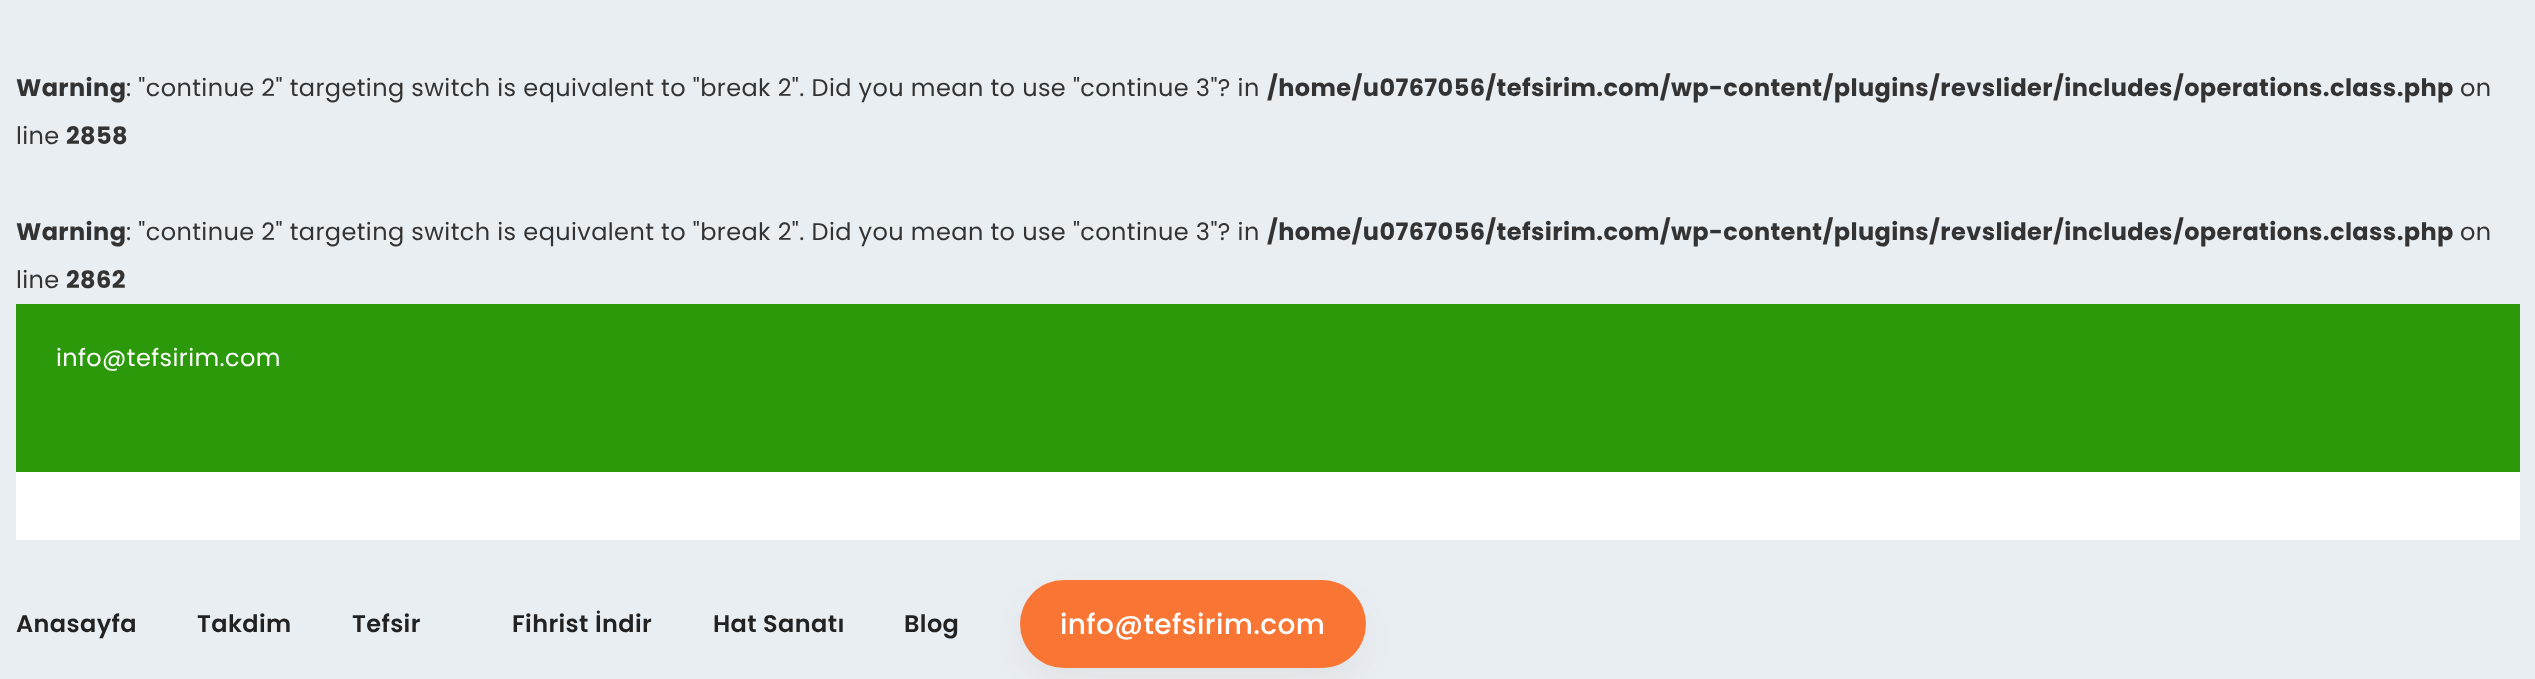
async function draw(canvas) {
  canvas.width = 2535;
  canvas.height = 679;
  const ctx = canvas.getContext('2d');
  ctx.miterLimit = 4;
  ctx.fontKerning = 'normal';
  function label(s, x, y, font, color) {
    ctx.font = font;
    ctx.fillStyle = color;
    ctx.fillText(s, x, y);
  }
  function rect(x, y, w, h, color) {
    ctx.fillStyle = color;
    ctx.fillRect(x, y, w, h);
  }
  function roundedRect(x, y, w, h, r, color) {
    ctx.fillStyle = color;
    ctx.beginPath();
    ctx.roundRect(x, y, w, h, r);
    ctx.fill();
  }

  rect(0, 0, 2535, 679, '#e9eef3');
  ctx.letterSpacing = '0.4px';
  label('Warning', 16, 96, 'bold 24px Poppins', '#333');
  label(': "continue 2" targeting switch is equivalent to "break 2". Did you mean to use "continue 3"? in', 126, 96, '24px Poppins', '#333');
  label('/home/u0767056/tefsirim.com/wp-content/plugins/revslider/includes/operations.class.php', 1267, 96, 'bold 24px Poppins', '#333');
  label('on', 2460, 96, '24px Poppins', '#333');
  label('line', 16, 144, '24px Poppins', '#333');
  label('2858', 66, 144, 'bold 24px Poppins', '#333');
  label('Warning', 16, 240, 'bold 24px Poppins', '#333');
  label(': "continue 2" targeting switch is equivalent to "break 2". Did you mean to use "continue 3"? in', 126, 240, '24px Poppins', '#333');
  label('/home/u0767056/tefsirim.com/wp-content/plugins/revslider/includes/operations.class.php', 1267, 240, 'bold 24px Poppins', '#333');
  label('on', 2460, 240, '24px Poppins', '#333');
  label('line', 16, 288, '24px Poppins', '#333');
  label('2862', 66, 288, 'bold 24px Poppins', '#333');
  rect(16, 472, 2504, 68, '#fff');
  rect(16, 304, 2504, 168, '#2b990a');
  label('info@tefsirim.com', 56, 366, '24px Poppins', '#fff');
  label('Anasayfa', 16, 632, '600 24px Poppins', '#222');
  label('Takdim', 197, 632, '600 24px Poppins', '#222');
  label('Tefsir', 352, 632, '600 24px Poppins', '#222');
  label('Fihrist İndir', 512, 632, '600 24px Poppins', '#222');
  label('Hat Sanatı', 713, 632, '600 24px Poppins', '#222');
  label('Blog', 904, 632, '600 24px Poppins', '#222');
  ctx.fillStyle = '#d9d9d980';
  ctx.filter = 'blur(15px)';
  ctx.beginPath();
  ctx.roundRect(1020, 596, 346, 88, 44);
  ctx.fill();
  ctx.filter = 'none';
  roundedRect(1020, 580, 346, 88, 44, '#f97534');
  label('info@tefsirim.com', 1060, 634, '500 28px Poppins', '#fff');
}

draw(document.querySelector('canvas'));
